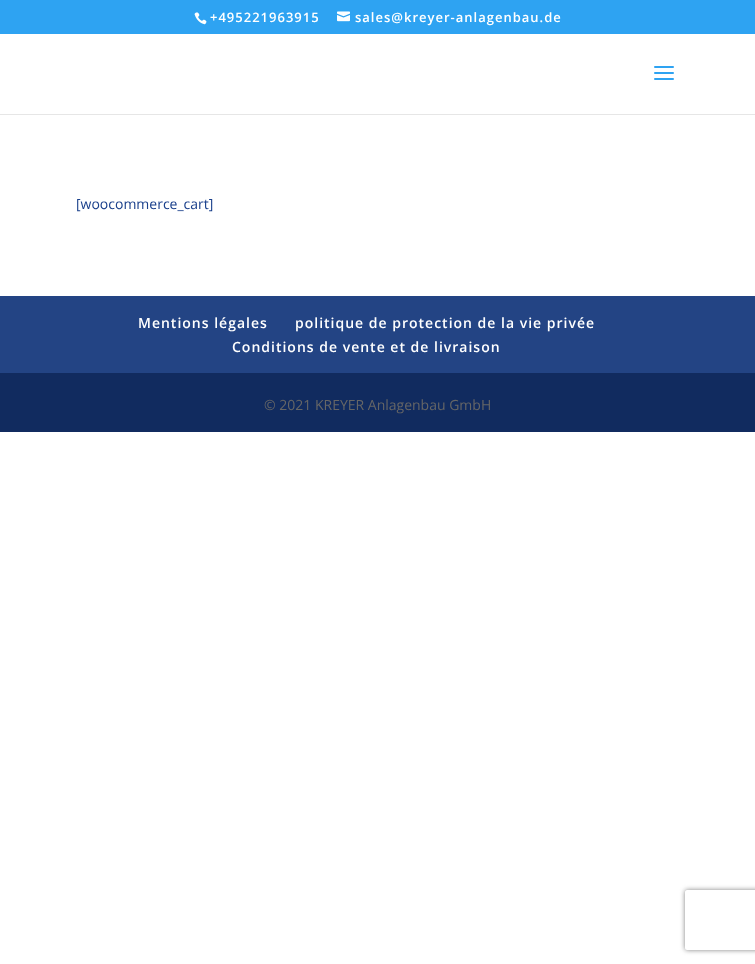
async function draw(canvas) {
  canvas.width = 755;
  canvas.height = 964;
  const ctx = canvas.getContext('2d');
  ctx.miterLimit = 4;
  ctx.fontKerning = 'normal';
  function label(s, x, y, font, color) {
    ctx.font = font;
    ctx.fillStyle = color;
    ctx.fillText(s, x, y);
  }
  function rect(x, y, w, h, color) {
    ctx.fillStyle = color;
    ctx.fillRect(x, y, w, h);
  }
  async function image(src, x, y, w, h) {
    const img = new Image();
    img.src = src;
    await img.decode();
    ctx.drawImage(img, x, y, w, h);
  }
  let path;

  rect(0, 0, 755, 964, '#fff');
  rect(0, 0, 755, 34, '#2ea3f2');
  await image('assets/img1.png', 194, 12, 13, 13);
  ctx.letterSpacing = '1px';
  label('+495221963915', 210, 22, '600 13px Open Sans', '#fff');
  await image('assets/img2.png', 337, 11, 13, 11);
  label('sales@kreyer-anlagenbau.de', 355, 22, '600 13px Open Sans', '#fff');
  rect(0, 114, 755, 1, '#e6e6e6');
  await image('assets/img3.png', 654, 66, 20, 14);
  ctx.letterSpacing = '0px';
  label('[woocommerce_cart]', 76, 209, '14px Open Sans', '#193f8b');
  rect(0, 296, 755, 77, '#234484');
  ctx.letterSpacing = '1px';
  label('Mentions légales', 138, 328, '600 14px Open Sans', '#fff');
  label('politique de protection de la vie privée', 295, 328, '600 14px Open Sans', '#fff');
  label('Conditions de vente et de livraison', 232, 352, '600 14px Open Sans', '#fff');
  rect(0, 373, 755, 59, '#112b5f');
  ctx.letterSpacing = '0px';
  label('© 2021 KREYER Anlagenbau GmbH', 264, 410, '14px Open Sans', '#666');
  ctx.save();
  path = new Path2D('M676 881H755V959H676ZM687 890H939C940 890 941 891 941 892V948C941 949 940 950 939 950H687C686 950 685 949 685 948V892C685 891 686 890 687 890Z');
  ctx.clip(path, 'evenodd');
  ctx.fillStyle = '#808080';
  ctx.filter = 'blur(2.5px)';
  ctx.beginPath();
  ctx.roundRect(685, 890, 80, 60, 2);
  ctx.fill();
  ctx.filter = 'none';
  ctx.restore();
}

draw(document.querySelector('canvas'));
